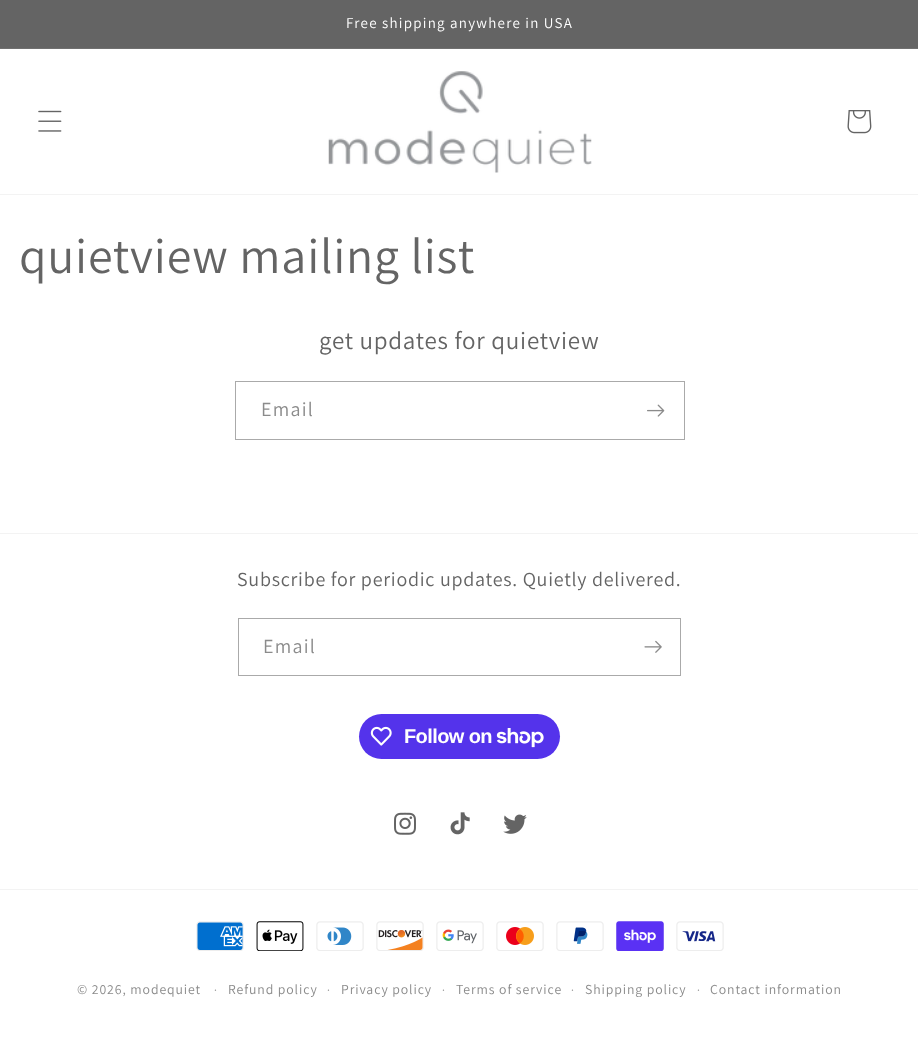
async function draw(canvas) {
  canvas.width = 918;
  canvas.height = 1042;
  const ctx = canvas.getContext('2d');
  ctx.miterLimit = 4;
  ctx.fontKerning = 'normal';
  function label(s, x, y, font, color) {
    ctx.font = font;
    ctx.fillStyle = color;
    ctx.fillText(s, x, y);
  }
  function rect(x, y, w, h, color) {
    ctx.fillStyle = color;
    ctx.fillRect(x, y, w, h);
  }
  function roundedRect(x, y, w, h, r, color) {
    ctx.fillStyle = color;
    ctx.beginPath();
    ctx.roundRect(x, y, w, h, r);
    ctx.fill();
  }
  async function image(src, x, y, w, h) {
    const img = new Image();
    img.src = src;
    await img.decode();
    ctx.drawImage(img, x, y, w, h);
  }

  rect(0, 0, 918, 1042, '#fff');
  rect(0, 0, 918, 48, '#646464');
  rect(0, 48, 918, 1, '#707070');
  ctx.letterSpacing = '1.25px';
  label('Free shipping anywhere in USA', 346, 28, '15px Assistant', '#fff');
  rect(0, 194, 918, 1, '#f3f3f3');
  await image('assets/img1.png', 38, 110, 24, 22);
  await image('assets/img2.png', 328, 71, 264, 102);
  await image('assets/img3.png', 847, 110, 25, 24);
  ctx.letterSpacing = '0.75px';
  label('quietview mailing list', 19, 273, '50px Assistant', '#646464');
  label('get updates for quietview', 319, 349, '25px Assistant', '#646464');
  ctx.strokeStyle = '#aaa';
  ctx.strokeRect(235.5, 381.5, 449, 58);
  ctx.letterSpacing = '1.25px';
  label('Email', 261, 416, '20px Assistant', '#8b8b8b');
  await image('assets/img4.png', 647, 404, 18, 13);
  rect(0, 533, 918, 1, '#f3f3f3');
  ctx.letterSpacing = '0.75px';
  label('Subscribe for periodic updates. Quietly delivered.', 237, 586, '20px Assistant', '#646464');
  ctx.strokeRect(238.5, 618.5, 442, 57);
  ctx.letterSpacing = '1.25px';
  label('Email', 263, 653, '20px Assistant', '#8b8b8b');
  await image('assets/img5.png', 644, 640, 18, 13);
  roundedRect(359, 714, 201, 45, 22.5, '#5433eb');
  await image('assets/img6.png', 370, 726, 22, 20);
  ctx.letterSpacing = '-0.6px';
  label('Follow on', 404, 743, 'bold 20px Liberation Sans', '#fff');
  await image('assets/img7.png', 496, 728, 48, 20);
  await image('assets/img8.png', 394, 812, 22, 23);
  await image('assets/img9.png', 450, 812, 20, 23);
  await image('assets/img10.png', 503, 814, 24, 20);
  rect(0, 889, 918, 1, '#f3f3f3');
  await image('assets/img11.png', 196, 921, 48, 30);
  await image('assets/img12.png', 256, 921, 48, 30);
  await image('assets/img13.png', 316, 921, 48, 30);
  await image('assets/img14.png', 376, 921, 48, 30);
  await image('assets/img15.png', 436, 921, 48, 30);
  await image('assets/img16.png', 496, 921, 48, 30);
  await image('assets/img17.png', 556, 921, 48, 30);
  await image('assets/img18.png', 616, 921, 48, 30);
  await image('assets/img19.png', 676, 921, 48, 30);
  ctx.letterSpacing = '0.9px';
  label('© 2026, modequiet', 77, 994, '13.75px Assistant', '#8b8b8b');
  label('·', 214, 994, '12px Assistant', '#8b8b8b');
  label('Refund policy', 228, 994, '13.75px Assistant', '#8b8b8b');
  label('·', 327, 994, '12px Assistant', '#8b8b8b');
  label('Privacy policy', 341, 994, '13.75px Assistant', '#8b8b8b');
  label('·', 442, 994, '12px Assistant', '#8b8b8b');
  label('Terms of service', 456, 994, '13.75px Assistant', '#8b8b8b');
  label('·', 571, 994, '12px Assistant', '#8b8b8b');
  label('Shipping policy', 585, 994, '13.75px Assistant', '#8b8b8b');
  label('·', 697, 994, '12px Assistant', '#8b8b8b');
  label('Contact information', 710, 994, '13.75px Assistant', '#8b8b8b');
}

draw(document.querySelector('canvas'));
